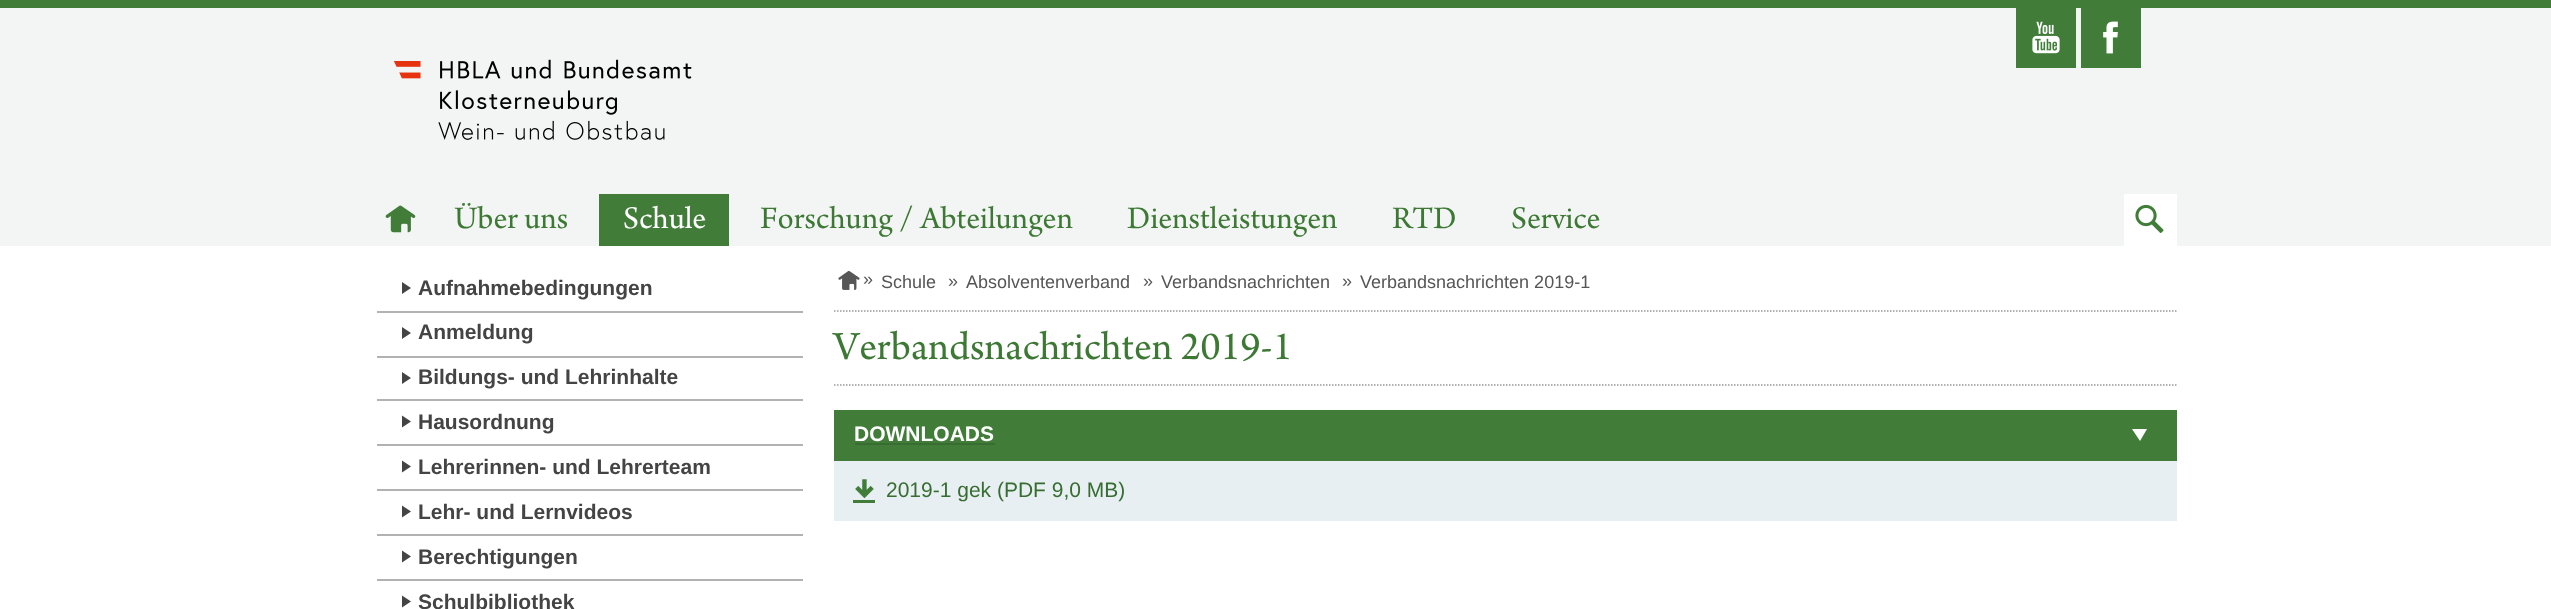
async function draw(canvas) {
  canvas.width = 2551;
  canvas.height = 609;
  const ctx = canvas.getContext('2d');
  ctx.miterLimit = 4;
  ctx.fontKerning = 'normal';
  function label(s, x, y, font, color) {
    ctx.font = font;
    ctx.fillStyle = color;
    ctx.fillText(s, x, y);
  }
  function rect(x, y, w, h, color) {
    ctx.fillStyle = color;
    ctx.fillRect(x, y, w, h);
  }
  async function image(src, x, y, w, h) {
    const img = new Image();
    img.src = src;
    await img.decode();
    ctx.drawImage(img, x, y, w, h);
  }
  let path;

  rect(0, 0, 2551, 609, '#fff');
  rect(0, 8, 2551, 238, '#f3f5f4');
  rect(0, 0, 2551, 8, '#417d39');
  rect(2016, 8, 60, 60, '#417d39');
  await image('assets/img1.png', 2032, 21, 28, 33);
  rect(2081, 8, 60, 60, '#417d39');
  await image('assets/img2.png', 2103, 21, 15, 33);
  await image('assets/img3.png', 393, 59, 299, 81);
  await image('assets/img4.png', 385, 205, 31, 28);
  label('Über uns', 454, 228, '33px "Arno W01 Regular"', '#3d7935');
  rect(599, 194, 130, 52, '#417d39');
  label('Schule', 623, 228, '33px "Arno W01 Regular"', '#fff');
  label('Forschung / Abteilungen', 760, 228, '33px "Arno W01 Regular"', '#3d7935');
  label('Dienstleistungen', 1127, 228, '33px "Arno W01 Regular"', '#3d7935');
  label('RTD', 1392, 228, '33px "Arno W01 Regular"', '#3d7935');
  label('Service', 1511, 228, '33px "Arno W01 Regular"', '#3d7935');
  rect(2124, 194, 53, 52, '#fff');
  await image('assets/img5.png', 2135, 204, 29, 29);
  rect(377, 311, 426, 2, '#b2b2b2');
  ctx.fillStyle = '#444';
  path = new Path2D('M402 294V282L411 288Z');
  ctx.fill(path);
  label('Aufnahmebedingungen', 418, 295, 'bold 21px Liberation Sans', '#444');
  rect(377, 356, 426, 2, '#b2b2b2');
  ctx.fillStyle = '#444';
  path = new Path2D('M402 339V327L411 333Z');
  ctx.fill(path);
  label('Anmeldung', 418, 339, 'bold 21px Liberation Sans', '#444');
  rect(377, 399, 426, 2, '#b2b2b2');
  ctx.fillStyle = '#444';
  path = new Path2D('M402 384V372L411 378Z');
  ctx.fill(path);
  label('Bildungs- und Lehrinhalte', 418, 384, 'bold 21px Liberation Sans', '#444');
  rect(377, 444, 426, 2, '#b2b2b2');
  ctx.fillStyle = '#444';
  path = new Path2D('M402 427.5V415.5L411 421.5Z');
  ctx.fill(path);
  label('Hausordnung', 418, 429, 'bold 21px Liberation Sans', '#444');
  rect(377, 489, 426, 2, '#b2b2b2');
  ctx.fillStyle = '#444';
  path = new Path2D('M402 472.5V460.5L411 466.5Z');
  ctx.fill(path);
  label('Lehrerinnen- und Lehrerteam', 418, 474, 'bold 21px Liberation Sans', '#444');
  rect(377, 534, 426, 2, '#b2b2b2');
  ctx.fillStyle = '#444';
  path = new Path2D('M402 517.5V505.5L411 511.5Z');
  ctx.fill(path);
  label('Lehr- und Lernvideos', 418, 519, 'bold 21px Liberation Sans', '#444');
  rect(377, 579, 426, 2, '#b2b2b2');
  ctx.fillStyle = '#444';
  path = new Path2D('M402 562.5V550.5L411 556.5Z');
  ctx.fill(path);
  label('Berechtigungen', 418, 564, 'bold 21px Liberation Sans', '#444');
  path = new Path2D('M402 607.5V595.5L411 601.5Z');
  ctx.fill(path);
  label('Schulbibliothek', 418, 609, 'bold 21px Liberation Sans', '#444');
  path = new Path2D('M834 311H2176.5');
  ctx.strokeStyle = '#999';
  ctx.lineWidth = 1.5;
  ctx.setLineDash([1.5, 1.5]);
  ctx.stroke(path);
  await image('assets/img6.png', 838, 270, 22, 20);
  label('»', 863, 285, '18px Liberation Sans', '#565656');
  label('Schule', 881, 288, '18px Liberation Sans', '#565656');
  label('»', 948, 287, '18px Liberation Sans', '#565656');
  label('Absolventenverband', 966, 288, '18px Liberation Sans', '#565656');
  label('»', 1143, 287, '18px Liberation Sans', '#565656');
  label('Verbandsnachrichten', 1161, 288, '18px Liberation Sans', '#565656');
  label('»', 1342, 287, '18px Liberation Sans', '#565656');
  label('Verbandsnachrichten 2019-1', 1360, 288, '18px Liberation Sans', '#565656');
  path = new Path2D('M834 385H2176.5');
  ctx.stroke(path);
  label('Verbandsnachrichten 2019-1', 833, 359, '42px "Arno W01 Regular"', '#3d7935');
  rect(834, 410, 1343, 51, '#417d39');
  label('DOWNLOADS', 854, 441, 'bold 21px Liberation Sans', '#fff');
  rect(855, 443, 140, 2, '#376d30');
  ctx.fillStyle = '#fff';
  path = new Path2D('M2132 429H2147L2140 441Z');
  ctx.fill(path);
  rect(834, 461, 1343, 60, '#e7eff3');
  await image('assets/img7.png', 853, 479, 22, 24);
  label('2019-1 gek (PDF 9,0 MB)', 886, 497, '21px Liberation Sans', '#376d30');
}

draw(document.querySelector('canvas'));
